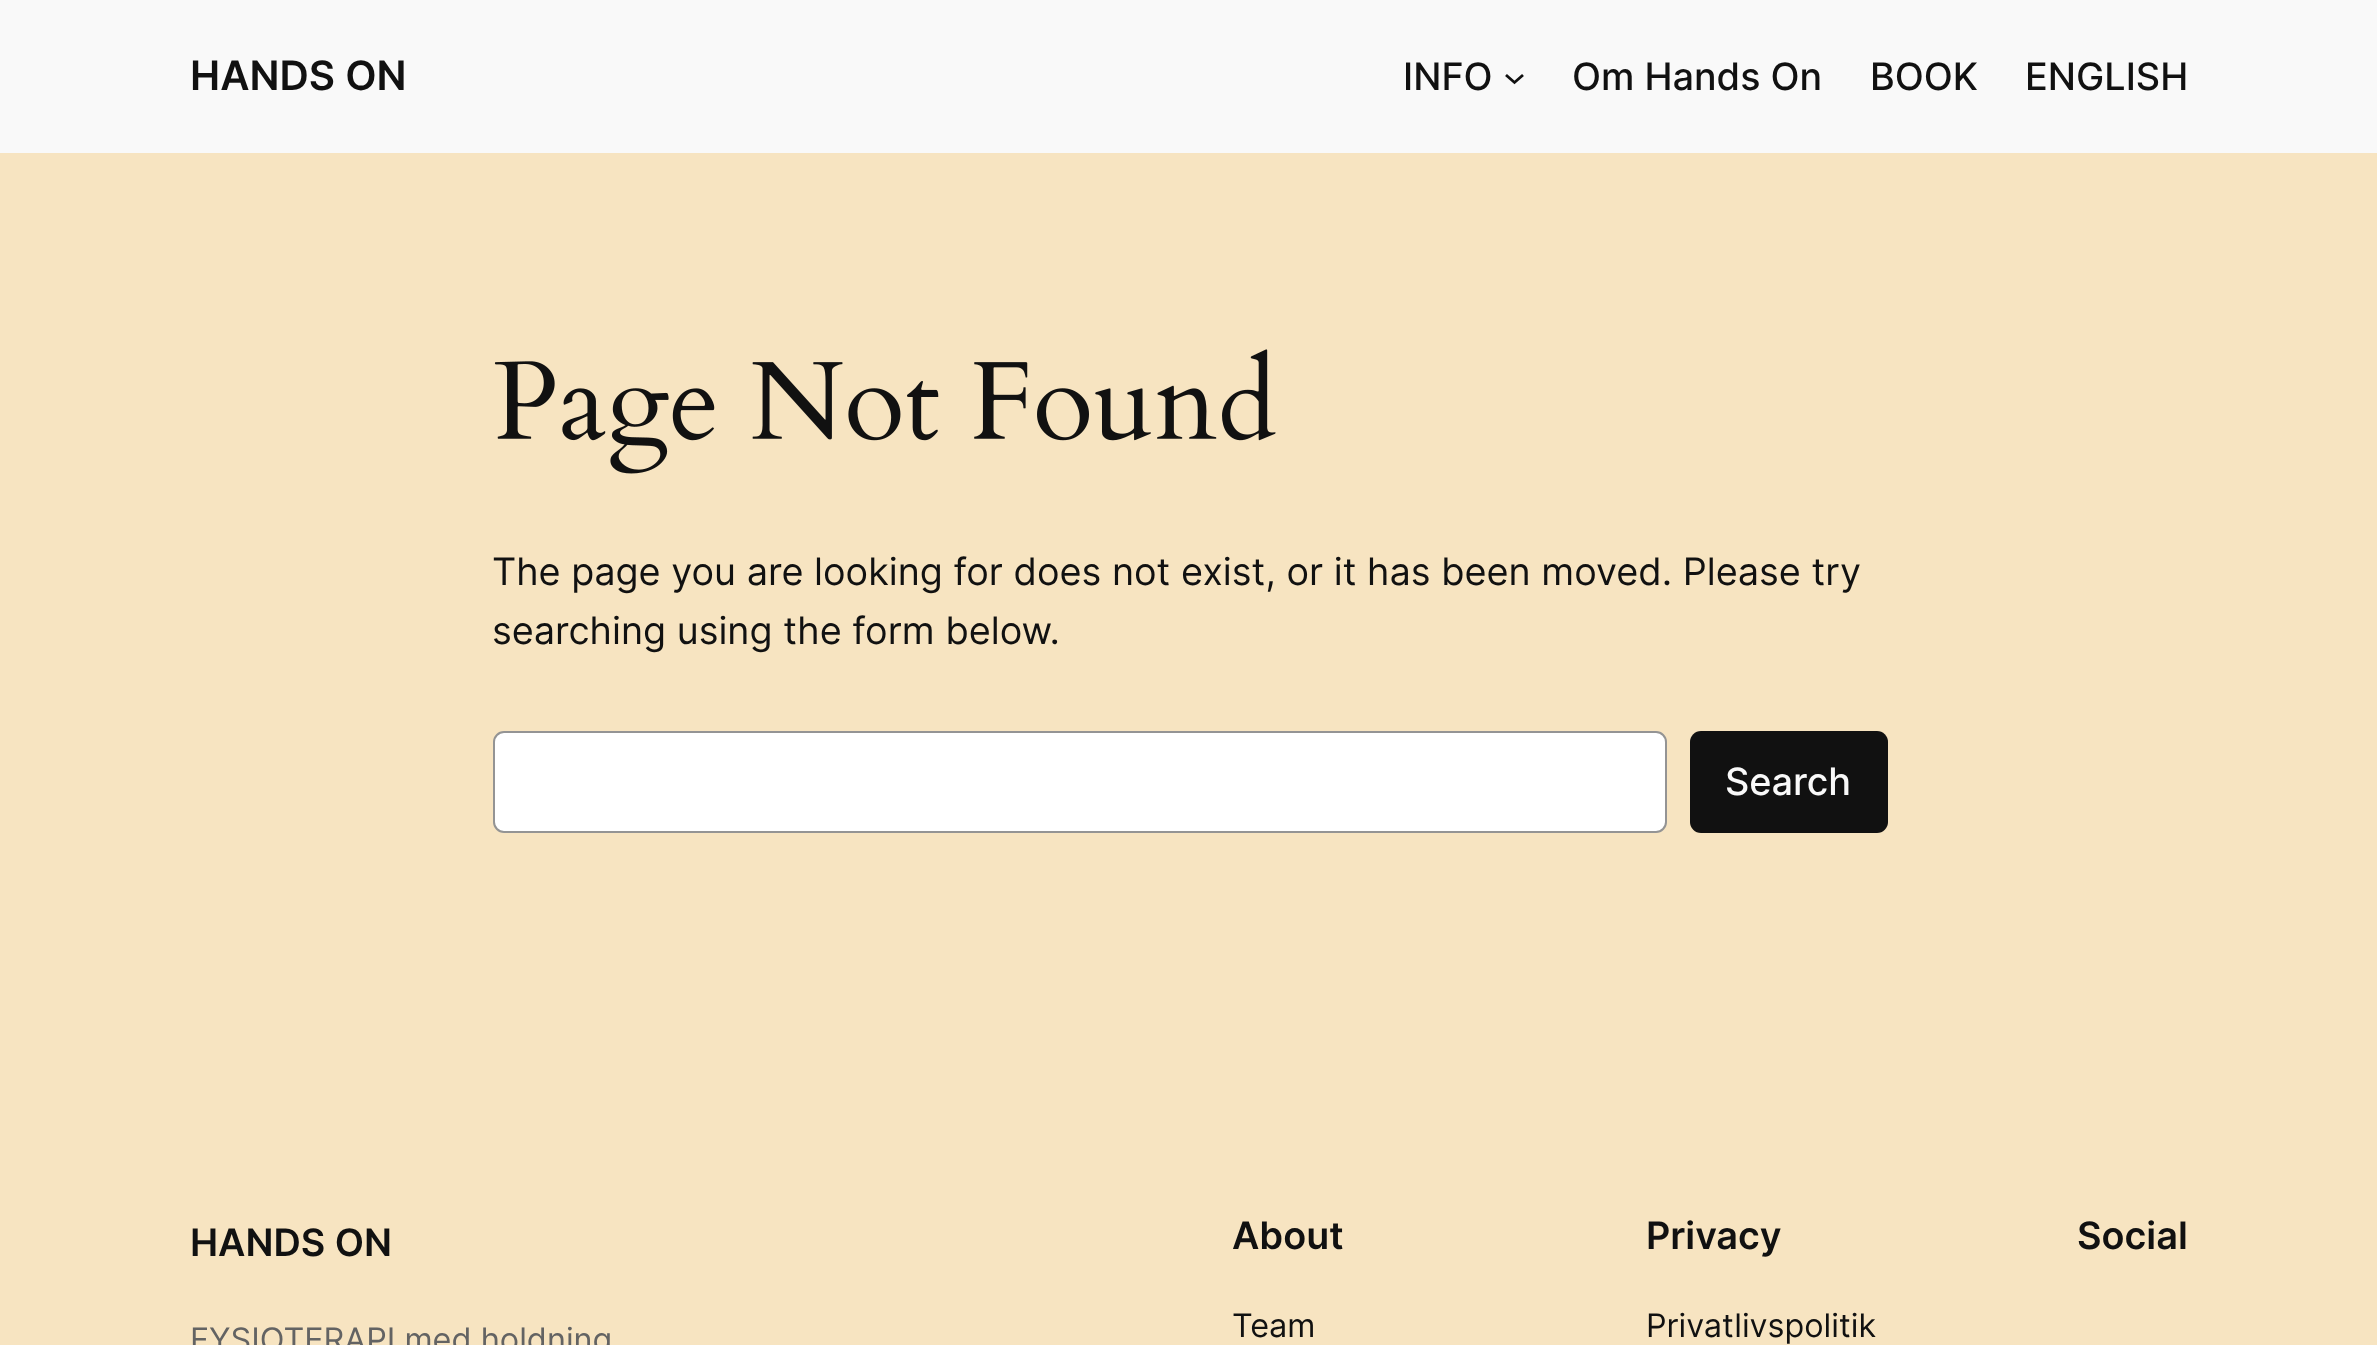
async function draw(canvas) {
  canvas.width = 2377;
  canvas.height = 1345;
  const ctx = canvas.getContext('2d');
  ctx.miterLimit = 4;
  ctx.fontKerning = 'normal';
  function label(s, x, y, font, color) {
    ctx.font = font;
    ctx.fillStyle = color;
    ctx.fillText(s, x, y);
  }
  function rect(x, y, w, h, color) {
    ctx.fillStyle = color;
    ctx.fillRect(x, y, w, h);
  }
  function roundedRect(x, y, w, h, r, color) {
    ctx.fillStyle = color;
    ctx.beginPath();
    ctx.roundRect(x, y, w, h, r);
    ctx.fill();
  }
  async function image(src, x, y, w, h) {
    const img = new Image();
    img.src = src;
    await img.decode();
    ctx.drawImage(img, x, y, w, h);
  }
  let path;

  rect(0, 0, 2377, 1345, '#f7e4c1');
  rect(0, 0, 2377, 153, '#f9f9f9');
  label('HANDS ON', 190, 90, '600 40.5px Inter', '#111');
  label('INFO', 1403, 90, '500 37.8px Inter', '#111');
  path = new Path2D('M1506 75L1514.5 82.5L1523 75');
  ctx.strokeStyle = '#111';
  ctx.lineWidth = 2.8;
  ctx.stroke(path);
  label('Om Hands On', 1572, 90, '500 37.8px Inter', '#111');
  label('BOOK', 1870, 90, '500 37.8px Inter', '#111');
  label('ENGLISH', 2025, 90, '500 37.8px Inter', '#111');
  await image('assets/img1.png', 494, 349, 782, 125);
  label('The page you are looking for does not exist, or it has been moved. Please try', 492, 585, '37.8px Inter', '#111');
  label('searching using the form below.', 492, 644, '37.8px Inter', '#111');
  ctx.fillStyle = '#fff';
  ctx.beginPath();
  ctx.roundRect(494, 732, 1172, 100, 10);
  ctx.fill();
  ctx.strokeStyle = '#949494';
  ctx.lineWidth = 2;
  ctx.stroke();
  roundedRect(1690, 731, 198, 102, 11, '#111');
  label('Search', 1725, 795, '500 37.8px Inter', '#f9f9f9');
  label('HANDS ON', 190, 1256, '600 37.8px Inter', '#111');
  label('FYSIOTERAPI med holdning', 190, 1351, '32.4px Inter', '#636363');
  label('About', 1232, 1249, '600 37.8px Inter', '#111');
  label('Team', 1232, 1337, '32.4px Inter', '#111');
  label('Privacy', 1646, 1249, '600 37.8px Inter', '#111');
  label('Privatlivspolitik', 1646, 1337, '32.4px Inter', '#111');
  label('Social', 2077, 1249, '600 37.8px Inter', '#111');
}

draw(document.querySelector('canvas'));
